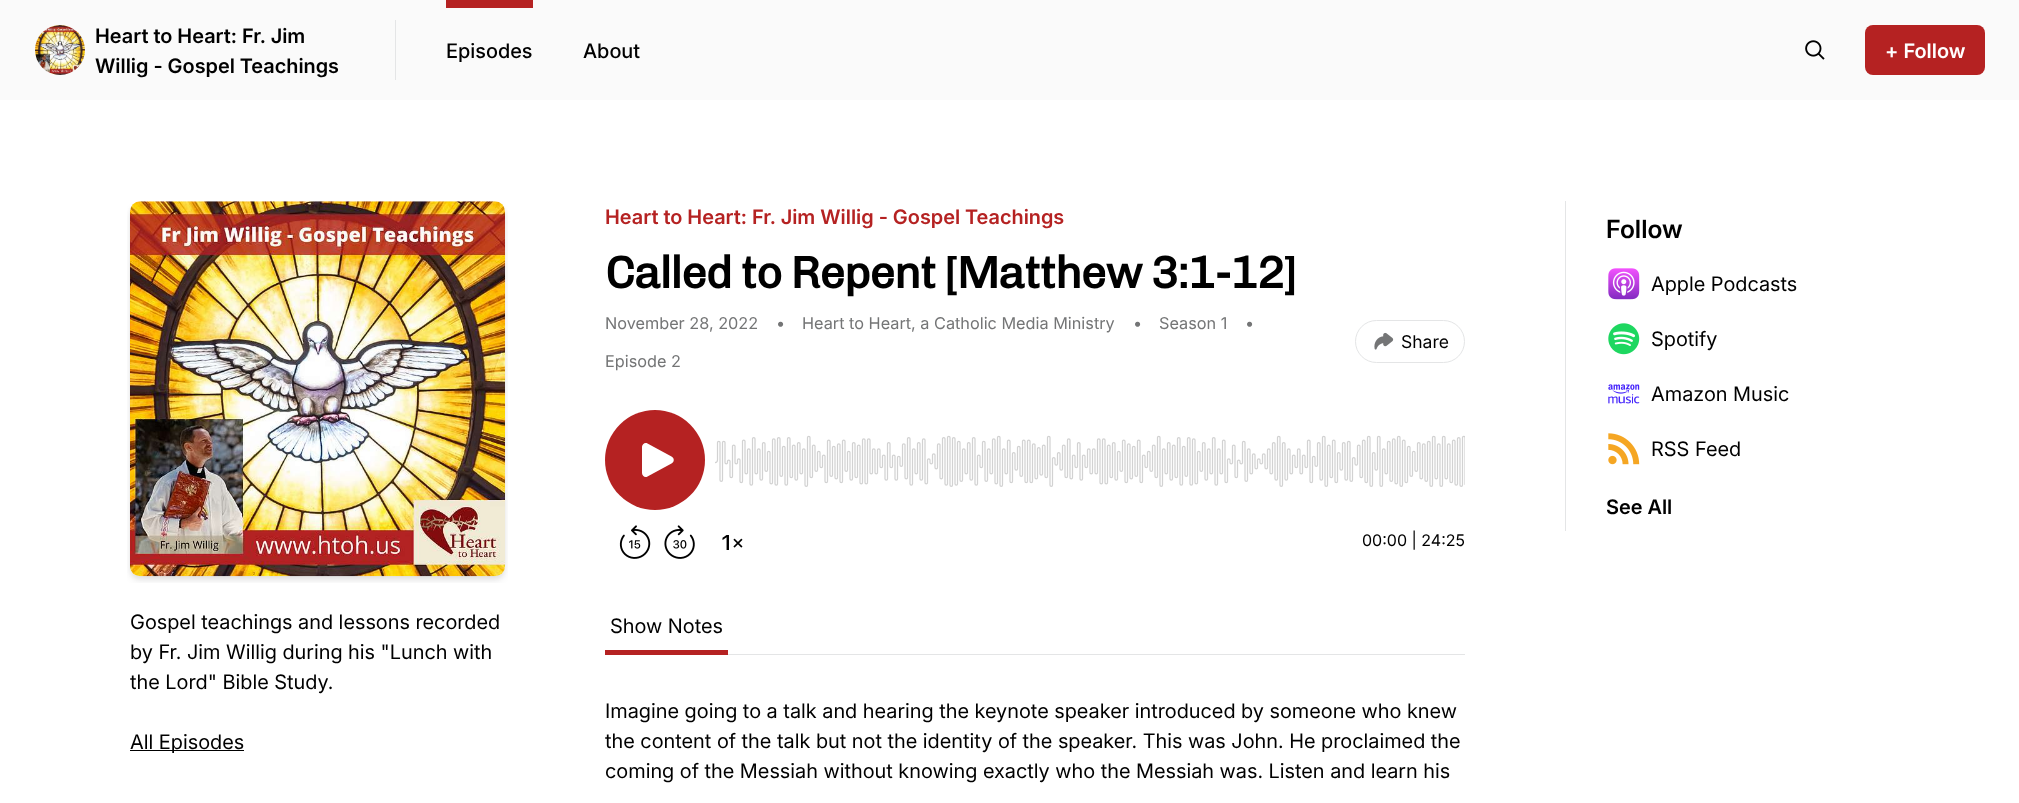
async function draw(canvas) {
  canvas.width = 2019;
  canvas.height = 803;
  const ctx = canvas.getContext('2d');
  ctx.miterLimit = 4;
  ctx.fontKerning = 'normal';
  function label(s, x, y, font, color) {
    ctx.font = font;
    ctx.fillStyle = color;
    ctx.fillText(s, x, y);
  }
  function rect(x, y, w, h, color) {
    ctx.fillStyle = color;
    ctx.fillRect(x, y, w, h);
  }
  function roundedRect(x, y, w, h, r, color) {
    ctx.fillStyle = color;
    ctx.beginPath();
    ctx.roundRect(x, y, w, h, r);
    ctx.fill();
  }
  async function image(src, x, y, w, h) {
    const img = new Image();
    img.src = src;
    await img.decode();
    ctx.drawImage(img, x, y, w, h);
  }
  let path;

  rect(0, 0, 2019, 803, '#fff');
  rect(0, 0, 2019, 100, '#fafafa');
  rect(395, 20, 1, 60, '#e4e5e6');
  await image('assets/img1.png', 35, 25, 50, 50);
  label('Heart to Heart: Fr. Jim', 95, 43, '600 20px Inter', '#000');
  label('Willig - Gospel Teachings', 95, 73, '600 20px Inter', '#000');
  rect(446, 0, 87, 8, '#b52222');
  label('Episodes', 446, 58, '500 20px Inter', '#000');
  label('About', 583, 58, '500 20px Inter', '#000');
  await image('assets/img2.png', 1805, 40, 20, 20);
  roundedRect(1865, 25, 120, 50, 8, '#b52222');
  label('+ Follow', 1885, 58, '600 20px Inter', '#fff');
  label('Heart to Heart: Fr. Jim Willig - Gospel Teachings', 605, 224, '600 20px Inter', '#b52222');
  ctx.letterSpacing = '-1.1px';
  label('Called to Repent [Matthew 3:1-12]', 605, 288, 'bold 45px Chivo', '#000');
  ctx.letterSpacing = '0px';
  label('November 28, 2022', 605, 329, '16.25px "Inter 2"', '#747576');
  label('•', 776, 329, '16.25px "Inter 2"', '#747576');
  label('Heart to Heart, a Catholic Media Ministry', 802, 329, '16.25px "Inter 2"', '#747576');
  label('•', 1133, 329, '16.25px "Inter 2"', '#747576');
  label('Season 1', 1159, 329, '16.25px "Inter 2"', '#747576');
  label('•', 1245, 329, '16.25px "Inter 2"', '#747576');
  label('Episode 2', 605, 367, '16.25px "Inter 2"', '#747576');
  ctx.beginPath();
  ctx.roundRect(1355.5, 320.5, 109, 42, 21);
  ctx.strokeStyle = '#e4e5e6';
  ctx.stroke();
  await image('assets/img3.png', 1374, 332, 20, 18);
  label('Share', 1401, 348, '17.5px "Inter 2"', '#000');
  await image('assets/img4.png', 619, 525, 32, 34);
  await image('assets/img5.png', 664, 525, 31, 34);
  await image('assets/img6.png', 722, 535, 21, 15);
  ctx.fillStyle = '#b52222';
  ctx.beginPath();
  ctx.arc(655, 460, 50, 0, 2 * Math.PI);
  ctx.fill();
  ctx.fillStyle = '#fff';
  path = new Path2D('M642 447C642 444 645 442 647.5 443.5L671.5 456.5C674.5 458 674.5 462 671.5 463.5L647.5 476.5C645 478 642 476 642 473Z');
  ctx.fill(path, 'evenodd');
  await image('assets/img7.png', 715, 435, 750, 52);
  label('00:00 | 24:25', 1362, 546, '16px "Inter 2"', '#000');
  rect(728, 654, 737, 1, '#e4e5e6');
  rect(605, 650, 123, 5, '#b52222');
  label('Show Notes', 610, 633, '20px Inter', '#000');
  label('Imagine going to a talk and hearing the keynote speaker introduced by someone who knew', 605, 718, '20px Inter', '#000');
  label('the content of the talk but not the identity of the speaker. This was John. He proclaimed the', 605, 748, '20px Inter', '#000');
  label('coming of the Messiah without knowing exactly who the Messiah was. Listen and learn his', 605, 778, '20px Inter', '#000');
  rect(1565, 201, 1, 330, '#e4e5e6');
  label('Follow', 1606, 238, '600 25px "Inter 2"', '#000');
  await image('assets/img8.png', 1608, 268, 32, 32);
  label('Apple Podcasts', 1651, 291, '20px Inter', '#000');
  await image('assets/img9.png', 1608, 323, 32, 32);
  label('Spotify', 1651, 346, '20px Inter', '#000');
  await image('assets/img10.png', 1608, 384, 32, 20);
  label('Amazon Music', 1651, 401, '20px Inter', '#000');
  await image('assets/img11.png', 1608, 433, 32, 32);
  label('RSS Feed', 1651, 456, '20px Inter', '#000');
  label('See All', 1606, 514, '600 20px Inter', '#000');
  await image('assets/img12.png', 127, 201, 381, 382);
  label('Gospel teachings and lessons recorded', 130, 629, '20px Inter', '#000');
  label('by Fr. Jim Willig during his "Lunch with', 130, 659, '20px Inter', '#000');
  label('the Lord" Bible Study.', 130, 689, '20px Inter', '#000');
  rect(130, 750, 114, 1, '#000');
  label('All Episodes', 130, 749, '20px Inter', '#000');
}

draw(document.querySelector('canvas'));
